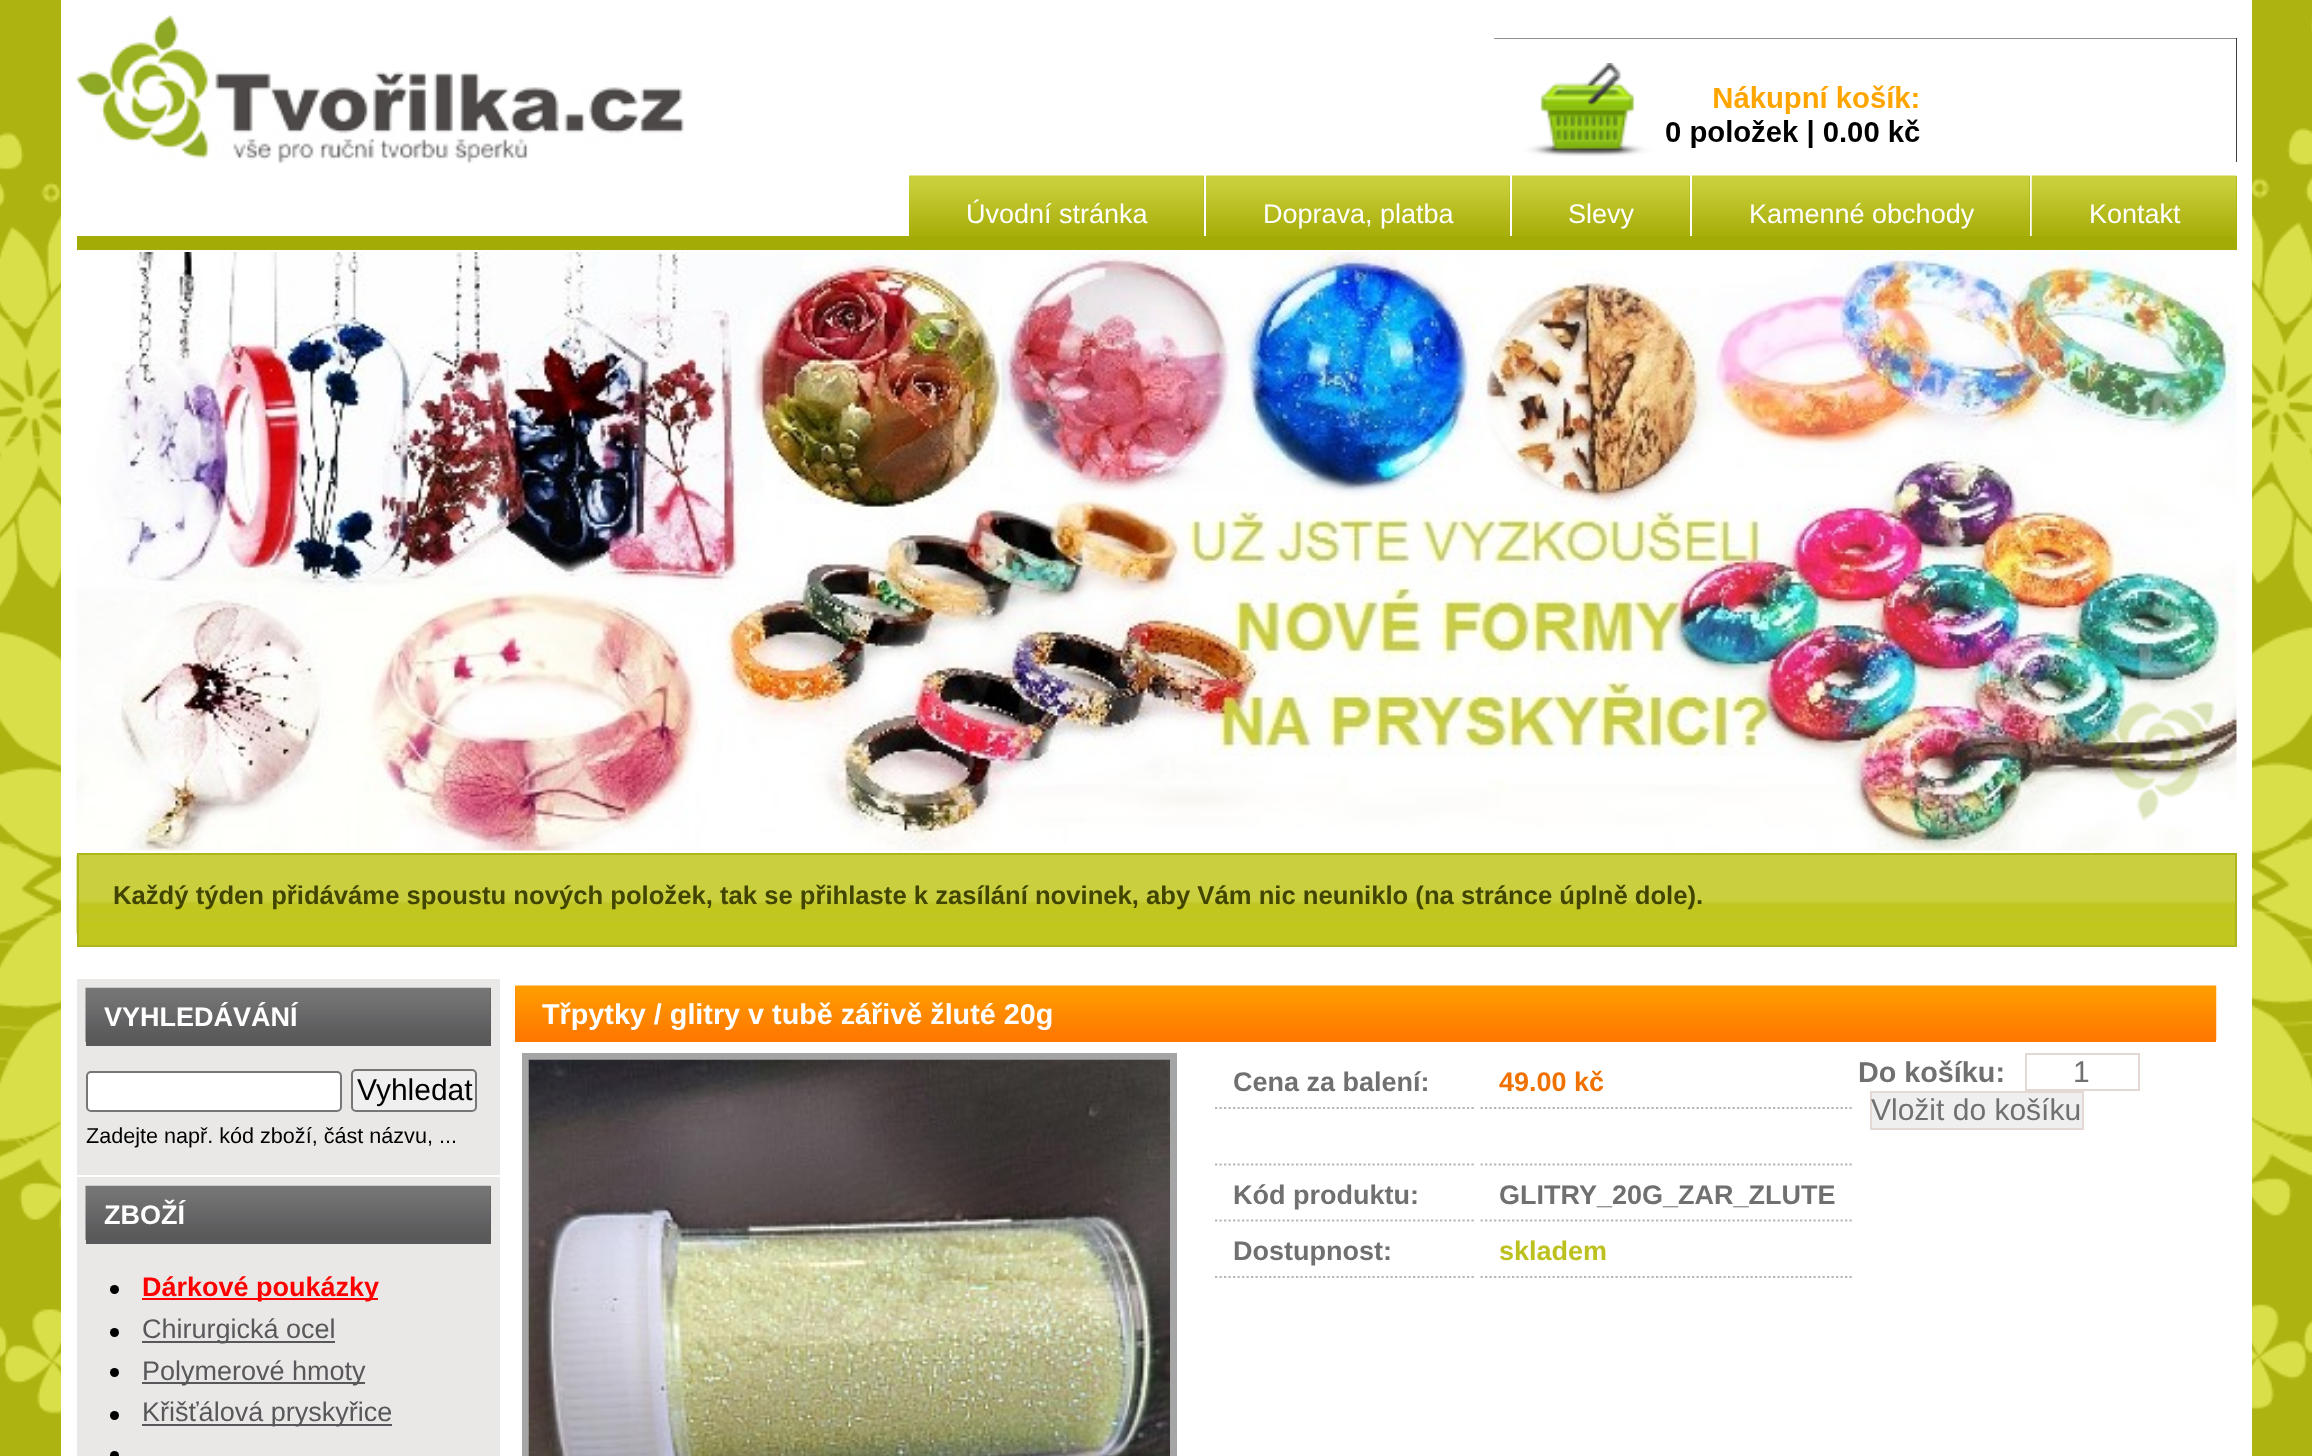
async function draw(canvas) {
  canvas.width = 2312;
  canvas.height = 1456;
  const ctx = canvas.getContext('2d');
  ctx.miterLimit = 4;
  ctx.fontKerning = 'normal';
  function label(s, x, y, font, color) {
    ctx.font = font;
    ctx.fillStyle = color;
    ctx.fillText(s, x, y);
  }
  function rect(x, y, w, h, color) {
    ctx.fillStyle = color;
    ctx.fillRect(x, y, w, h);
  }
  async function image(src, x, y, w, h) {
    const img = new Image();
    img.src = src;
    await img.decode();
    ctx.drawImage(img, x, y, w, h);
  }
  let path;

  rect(0, 0, 2312, 1456, '#adb311');
  await image('assets/img1.png', 0, 16, 2312, 1398);
  rect(61, 0, 2191, 1456, '#fff');
  await image('assets/img2.png', 76, 15, 608, 149);
  rect(1494, 38, 743, 124, '#000');
  await image('assets/img3.png', 1494, 38, 743, 124);
  rect(909, 176, 295, 60, '#a3ab06');
  await image('assets/img4.png', 909, 175, 295, 61);
  label('Úvodní stránka', 966, 223, '27px Liberation Sans', '#fff');
  rect(1206, 176, 304, 60, '#a3ab06');
  await image('assets/img5.png', 1206, 175, 304, 61);
  label('Doprava, platba', 1263, 223, '27px Liberation Sans', '#fff');
  rect(1512, 176, 178, 60, '#a3ab06');
  await image('assets/img6.png', 1512, 175, 178, 61);
  label('Slevy', 1568, 223, '27px Liberation Sans', '#fff');
  rect(1692, 176, 338, 60, '#a3ab06');
  await image('assets/img7.png', 1692, 175, 338, 61);
  label('Kamenné obchody', 1749, 223, '27px Liberation Sans', '#fff');
  rect(2032, 176, 205, 60, '#a3ab06');
  await image('assets/img8.png', 2031, 175, 206, 61);
  label('Kontakt', 2089, 223, '27px Liberation Sans', '#fff');
  rect(77, 236, 2160, 14, '#a3ab06');
  await image('assets/img9.png', 76, 252, 2161, 599);
  await image('assets/img10.png', 2086, 288, 132, 533);
  rect(79, 933, 2156, 12, '#c1c71f');
  await image('assets/img11.png', 76, 855, 2159, 79);
  ctx.strokeStyle = '#afb51c';
  ctx.lineWidth = 2;
  ctx.strokeRect(78, 854, 2158, 92);
  label('Každý týden přidáváme spoustu nových položek, tak se přihlaste k zasílání novinek, aby Vám nic neuniklo (na stránce úplně dole).', 113, 904, 'bold 25.65px Liberation Sans', '#424500');
  rect(77, 979, 423, 196, '#eae8e7');
  rect(86, 988, 405, 58, '#59595b');
  await image('assets/img12.png', 85, 987, 406, 55);
  label('VYHLEDÁVÁNÍ', 104, 1026, 'bold 27px Liberation Sans', '#fff');
  ctx.beginPath();
  ctx.roundRect(87, 1072, 254, 39, 4);
  ctx.fill();
  ctx.strokeStyle = '#767676';
  ctx.stroke();
  ctx.fillStyle = '#efefef';
  ctx.beginPath();
  ctx.roundRect(352, 1070, 124, 41, 4);
  ctx.fill();
  ctx.stroke();
  label('Vyhledat', 357, 1100, '30px Liberation Sans', '#000');
  label('Zadejte např. kód zboží, část názvu, ...', 86, 1143, '21.6px Liberation Sans', '#000');
  rect(77, 1177, 423, 279, '#eae8e7');
  rect(86, 1186, 405, 58, '#59595b');
  await image('assets/img13.png', 85, 1185, 406, 55);
  label('ZBOŽÍ', 104, 1224, 'bold 27px Liberation Sans', '#fff');
  ctx.fillStyle = '#000';
  ctx.beginPath();
  ctx.arc(114.5, 1289.5, 4.5, 0, 2 * Math.PI);
  ctx.fill();
  rect(142, 1298, 236, 2, '#f00');
  label('Dárkové poukázky', 142, 1296, 'bold 27px Liberation Sans', '#f00');
  ctx.fillStyle = '#000';
  ctx.beginPath();
  ctx.arc(114.5, 1332.5, 4.5, 0, 2 * Math.PI);
  ctx.fill();
  rect(142, 1341, 193, 2, '#58585a');
  label('Chirurgická ocel', 142, 1338, '27px Liberation Sans', '#58585a');
  ctx.fillStyle = '#000';
  ctx.beginPath();
  ctx.arc(114.5, 1372.5, 4.5, 0, 2 * Math.PI);
  ctx.fill();
  rect(142, 1382, 223, 2, '#58585a');
  label('Polymerové hmoty', 142, 1380, '27px Liberation Sans', '#58585a');
  ctx.fillStyle = '#000';
  ctx.beginPath();
  ctx.arc(114.5, 1415.5, 4.5, 0, 2 * Math.PI);
  ctx.fill();
  rect(142, 1424, 250, 2, '#58585a');
  label('Křišťálová pryskyřice', 142, 1421, '27px Liberation Sans', '#58585a');
  ctx.fillStyle = '#000';
  ctx.beginPath();
  ctx.arc(114.5, 1455.5, 4.5, 0, 2 * Math.PI);
  ctx.fill();
  rect(515, 986, 1701, 56, '#ff7900');
  await image('assets/img14.png', 515, 985, 1702, 55);
  label('Třpytky / glitry v tubě zářivě žluté 20g', 542, 1024, 'bold 28.75px Liberation Sans', '#fff');
  ctx.strokeStyle = '#a5a5a5';
  ctx.lineWidth = 7;
  ctx.strokeRect(525.5, 1056.5, 648, 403);
  await image('assets/img15.png', 528, 1059, 642, 397);
  path = new Path2D('M1215 1108H1476');
  ctx.strokeStyle = '#b7b7b7';
  ctx.lineWidth = 2.2;
  ctx.setLineDash([2.25, 2.25]);
  ctx.stroke(path);
  label('Cena za balení:', 1233, 1091, 'bold 27px Liberation Sans', '#707070');
  path = new Path2D('M1480.5 1108H1854');
  ctx.stroke(path);
  label('49.00 kč', 1499, 1091, 'bold 27px Liberation Sans', '#f07100');
  path = new Path2D('M1215 1164.5H1476');
  ctx.stroke(path);
  path = new Path2D('M1480.5 1164.5H1854');
  ctx.stroke(path);
  path = new Path2D('M1215 1220.5H1476');
  ctx.stroke(path);
  label('Kód produktu:', 1233, 1204, 'bold 27px Liberation Sans', '#707070');
  path = new Path2D('M1480.5 1220.5H1854');
  ctx.stroke(path);
  label('GLITRY_20G_ZAR_ZLUTE', 1499, 1204, 'bold 27px Liberation Sans', '#707070');
  path = new Path2D('M1215 1277H1476');
  ctx.stroke(path);
  label('Dostupnost:', 1233, 1260, 'bold 27px Liberation Sans', '#707070');
  path = new Path2D('M1480.5 1277H1854');
  ctx.stroke(path);
  label('skladem', 1499, 1260, 'bold 27px Liberation Sans', '#bcc11f');
  label('Do košíku:', 1858, 1082, 'bold 28.75px Liberation Sans', '#707070');
  ctx.strokeStyle = '#e4d8d5';
  ctx.lineWidth = 2;
  ctx.setLineDash([]);
  ctx.strokeRect(2026, 1054, 113, 36);
  label('1', 2073, 1082, '30px Liberation Sans', '#707070');
  ctx.fillStyle = '#efefef';
  ctx.beginPath();
  ctx.rect(1871, 1092, 212, 37);
  ctx.fill();
  ctx.stroke();
  label('Vložit do košíku', 1871, 1120, '30px Liberation Sans', '#707070');
}

draw(document.querySelector('canvas'));
